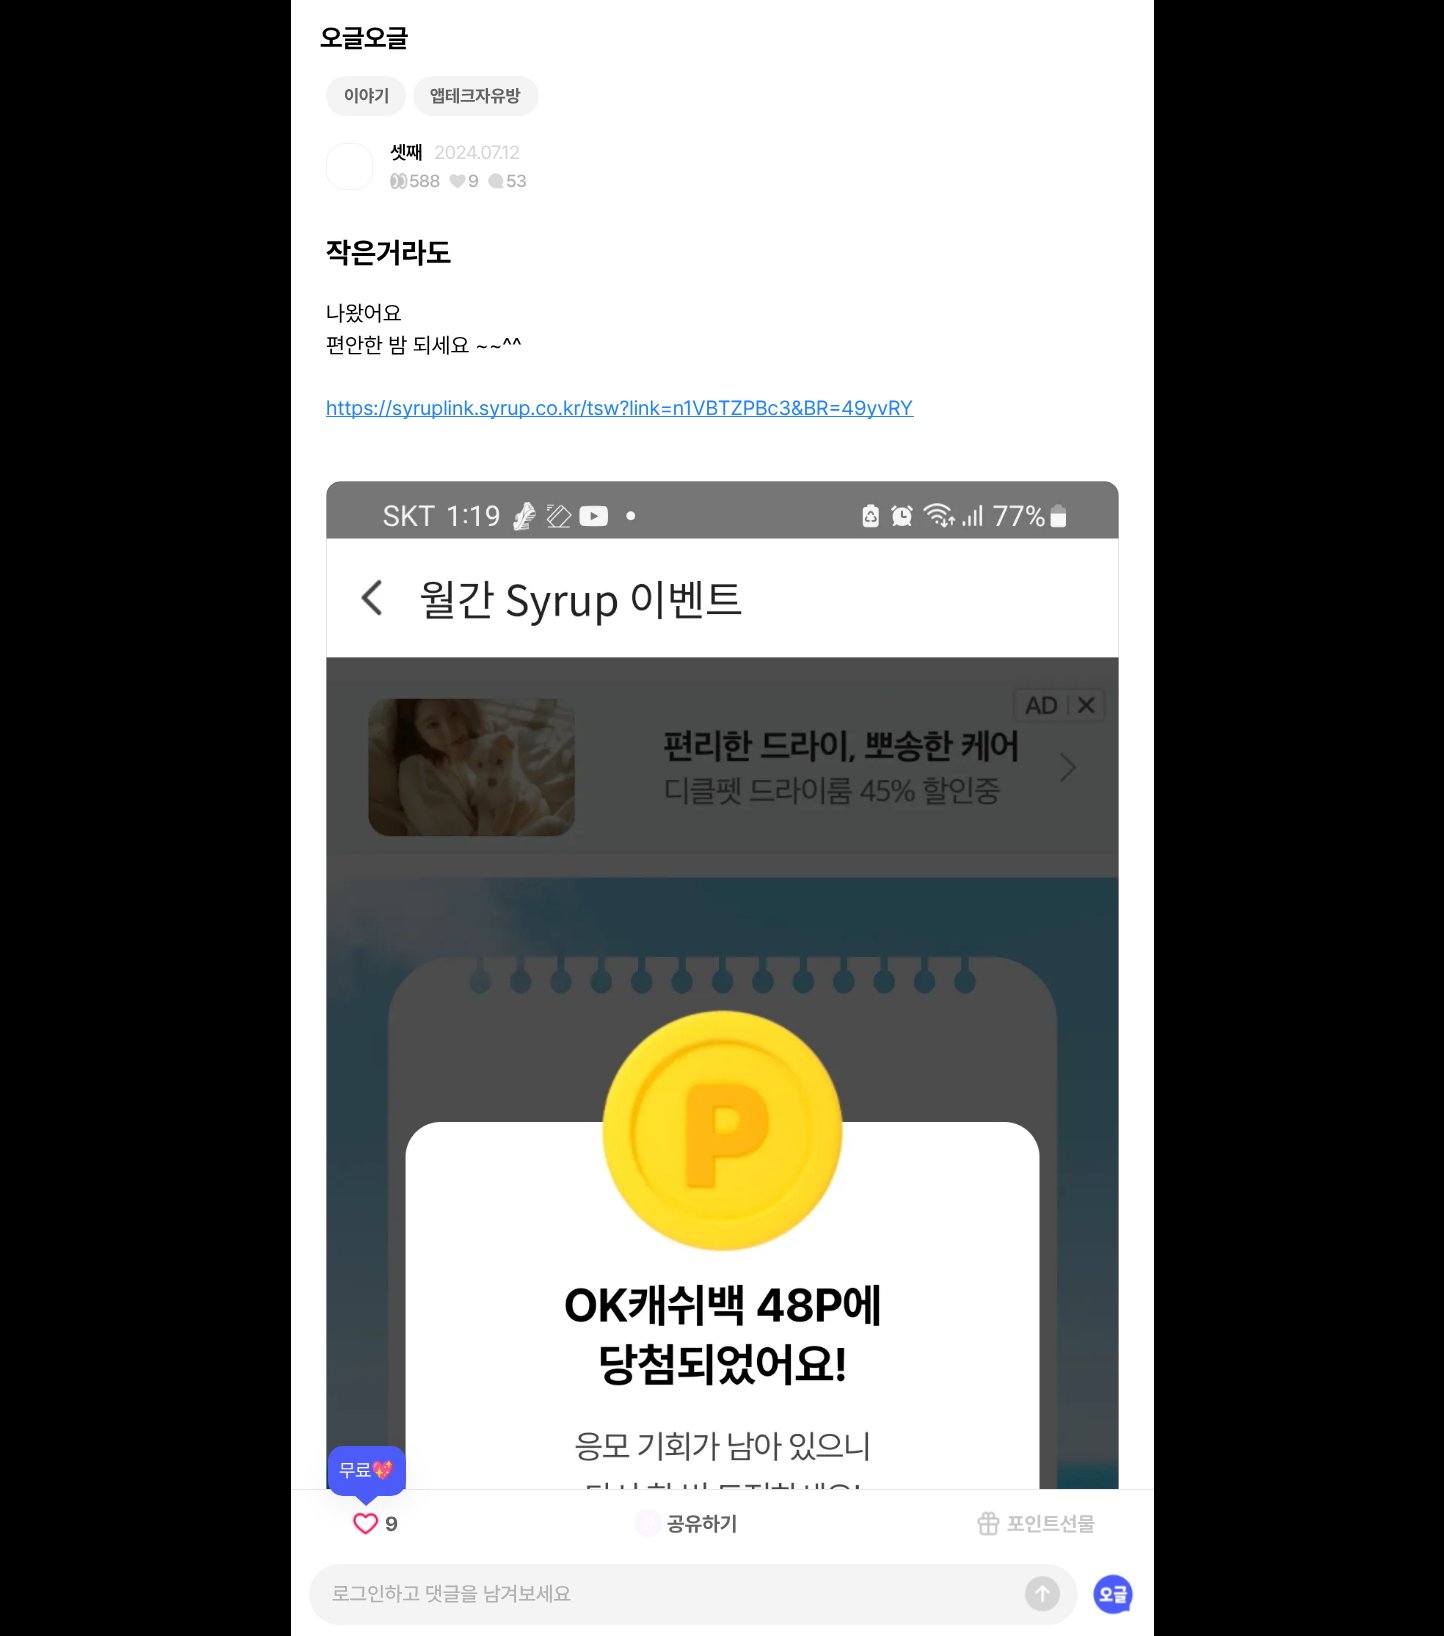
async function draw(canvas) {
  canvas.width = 1444;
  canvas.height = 1636;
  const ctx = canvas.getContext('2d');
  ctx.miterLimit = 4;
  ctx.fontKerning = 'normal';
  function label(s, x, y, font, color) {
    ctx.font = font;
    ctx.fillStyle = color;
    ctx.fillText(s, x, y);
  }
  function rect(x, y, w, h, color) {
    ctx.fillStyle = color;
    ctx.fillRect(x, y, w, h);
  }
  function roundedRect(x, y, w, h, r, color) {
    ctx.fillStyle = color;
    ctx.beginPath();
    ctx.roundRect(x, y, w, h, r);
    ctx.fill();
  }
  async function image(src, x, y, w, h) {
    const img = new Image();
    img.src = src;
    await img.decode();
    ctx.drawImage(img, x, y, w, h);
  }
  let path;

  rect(0, 0, 1444, 1636, '#000');
  rect(291, 0, 863, 1489, '#fff');
  ctx.letterSpacing = '-0.5px';
  label('오글오글', 320, 47, 'bold 26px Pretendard', '#000');
  roundedRect(326, 76, 80, 40, 20, '#f4f4f4');
  ctx.letterSpacing = '0px';
  label('이야기', 344, 102, 'bold 17.5px Pretendard', '#626262');
  roundedRect(413, 76, 126, 40, 20, '#f4f4f4');
  label('앱테크자유방', 430, 102, 'bold 17.5px Pretendard', '#626262');
  ctx.beginPath();
  ctx.roundRect(326.5, 143.5, 46, 46, 18.5);
  ctx.strokeStyle = '#f2f2f2';
  ctx.stroke();
  ctx.letterSpacing = '-0.5px';
  label('셋째', 390, 159, '600 19px Pretendard', '#000');
  label('2024.07.12', 434, 159, '19px Pretendard', '#d5d5d5');
  await image('assets/img1.png', 390, 172, 18, 18);
  label('588', 409, 187, '500 17.5px Pretendard', '#b1b1b1');
  await image('assets/img2.png', 449, 174, 17, 15);
  label('9', 468, 187, '500 17.5px Pretendard', '#b1b1b1');
  await image('assets/img3.png', 488, 173, 16, 16);
  label('53', 506, 187, '500 17.5px Pretendard', '#b1b1b1');
  ctx.letterSpacing = '0px';
  label('작은거라도', 326, 263, 'bold 29px Pretendard', '#000');
  label('나왔어요', 326, 321, '21.9px Pretendard', '#000');
  label('편안한 밤 되세요 ~~^^', 326, 353, '21.9px Pretendard', '#000');
  rect(326, 416, 588, 1, '#2084ff');
  label('https://syruplink.syrup.co.kr/tsw?link=n1VBTZPBc3&BR=49yvRY', 326, 415, '20.4px Pretendard', '#2084ff');
  await image('assets/img4.png', 326, 481, 793, 1008);
  ctx.beginPath();
  ctx.roundRect(326.5, 481.5, 792, 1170, 14.5);
  ctx.strokeStyle = '#0000001a';
  ctx.stroke();
  rect(291, 1490, 863, 146, '#fff');
  rect(291, 1489, 863, 1, '#e8e8ea');
  await image('assets/img5.png', 352, 1512, 27, 23);
  ctx.fillStyle = '#0000000d';
  ctx.filter = 'blur(14.5px)';
  ctx.beginPath();
  ctx.roundRect(328, 1458, 78, 50, 15);
  ctx.fill();
  ctx.filter = 'none';
  roundedRect(328, 1446, 78, 50, 15, '#4b5cfa');
  ctx.letterSpacing = '-0.5px';
  label('무료', 339, 1477, '19px Pretendard', '#fff');
  label('💖', 371, 1477, '19px Noto Color Emoji', '#fff');
  ctx.fillStyle = '#4b5cfa';
  path = new Path2D('M354 1495H379L366 1506Z');
  ctx.fill(path);
  ctx.letterSpacing = '0px';
  label('9', 385, 1531, 'bold 20.4px Pretendard', '#626262');
  await image('assets/img6.png', 634, 1509, 29, 28);
  label('공유하기', 667, 1531, 'bold 20.4px Pretendard', '#626262');
  await image('assets/img7.png', 977, 1511, 23, 25);
  label('포인트선물', 1007, 1531, 'bold 20.4px Pretendard', '#c7c7c7');
  roundedRect(309, 1564, 769, 61, 30.5, '#f4f4f4');
  label('로그인하고 댓글을 남겨보세요', 332, 1601, '500 20.4px Pretendard', '#b1b1b1');
  await image('assets/img8.png', 1024, 1576, 37, 36);
  await image('assets/img9.png', 1093, 1574, 41, 41);
}

draw(document.querySelector('canvas'));
